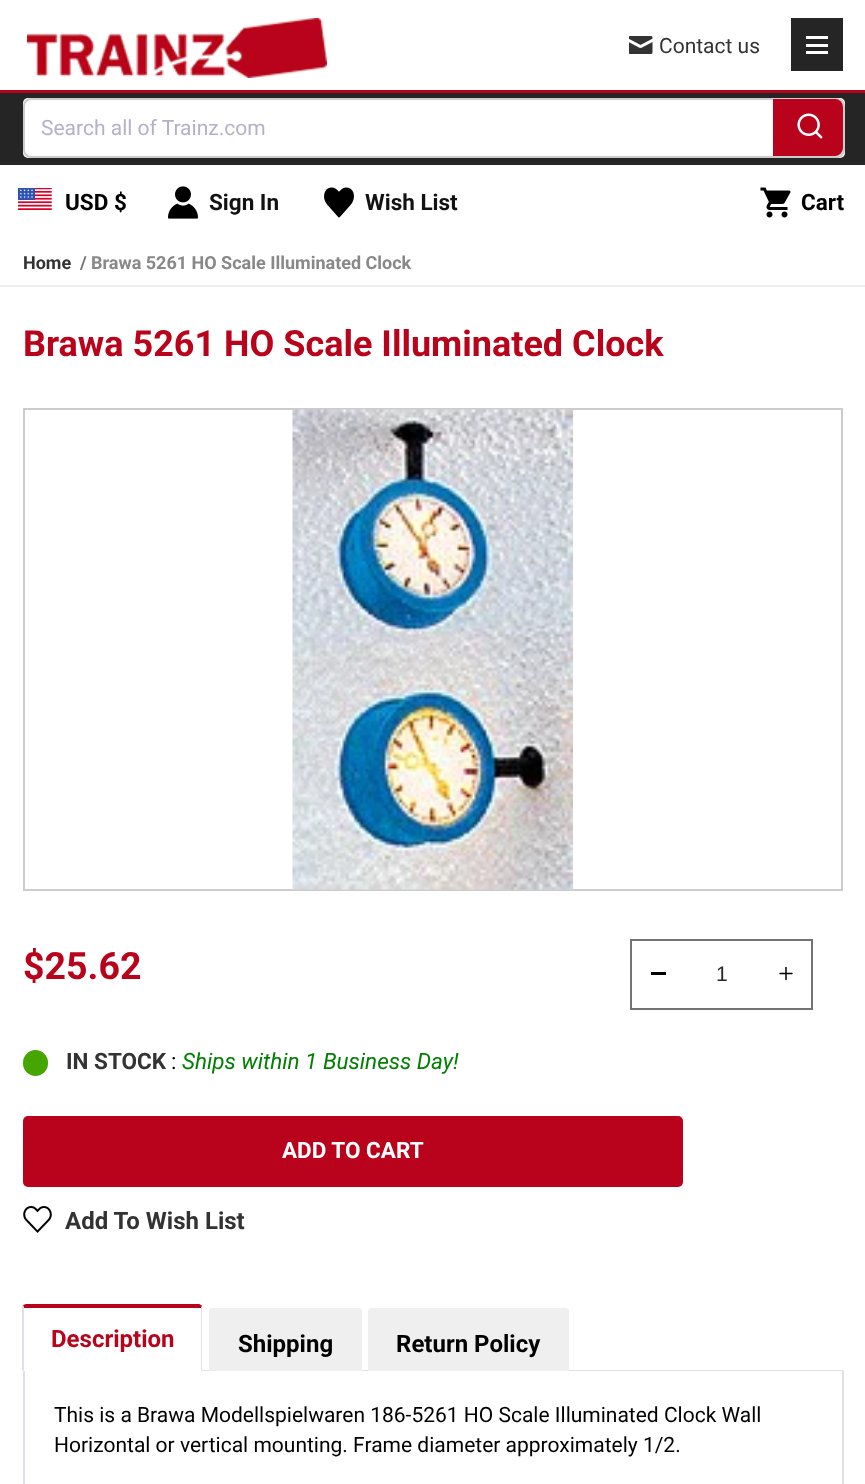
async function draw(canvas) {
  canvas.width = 865;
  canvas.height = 1484;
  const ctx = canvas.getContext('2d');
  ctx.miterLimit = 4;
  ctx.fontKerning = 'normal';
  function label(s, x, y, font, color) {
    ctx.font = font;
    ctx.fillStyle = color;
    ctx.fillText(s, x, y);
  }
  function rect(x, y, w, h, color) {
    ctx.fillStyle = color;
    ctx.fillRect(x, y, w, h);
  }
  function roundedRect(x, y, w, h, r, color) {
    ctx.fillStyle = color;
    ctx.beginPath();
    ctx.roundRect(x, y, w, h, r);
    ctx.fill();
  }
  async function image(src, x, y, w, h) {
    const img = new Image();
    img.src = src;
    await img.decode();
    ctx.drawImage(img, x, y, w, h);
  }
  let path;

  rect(0, 0, 865, 1484, '#fff');
  rect(0, 93, 865, 72, '#252525');
  rect(0, 90, 865, 3, '#b9031b');
  await image('assets/img1.png', 629, 36, 24, 18);
  label('Contact us', 659, 53, '21px Roboto', '#333');
  rect(791, 18, 52, 53, '#252525');
  rect(806, 36, 22, 3, '#fff');
  rect(806, 44, 22, 3, '#fff');
  rect(806, 51, 22, 3, '#fff');
  await image('assets/img2.png', 27, 18, 300, 60);
  ctx.beginPath();
  ctx.roundRect(24, 99, 820, 58, 7);
  ctx.strokeStyle = '#ccc';
  ctx.lineWidth = 2;
  ctx.stroke();
  roundedRect(23, 98, 822, 60, 5, '#fff');
  ctx.beginPath();
  ctx.roundRect(24, 99, 820, 58, 7);
  ctx.stroke();
  label('Search all of Trainz.com', 41, 135, '21px Roboto', '#b3b2c8');
  ctx.fillStyle = '#b9031c';
  ctx.beginPath();
  ctx.roundRect(773, 99, 70, 57, [0, 8, 8, 0]);
  ctx.fill();
  await image('assets/img3.png', 797, 113, 26, 26);
  await image('assets/img4.png', 18, 188, 34, 22);
  label('USD $', 65, 210, 'bold 22.5px Roboto', '#000');
  await image('assets/img5.png', 168, 186, 30, 33);
  label('Sign In', 209, 210, 'bold 22.5px Roboto', '#121212');
  await image('assets/img6.png', 324, 187, 30, 31);
  label('Wish List', 365, 210, 'bold 22.5px Roboto', '#121212');
  await image('assets/img7.png', 760, 187, 31, 31);
  label('Cart', 801, 210, 'bold 22.5px Roboto', '#000');
  rect(0, 285, 865, 2, '#eee');
  label('Home', 23, 269, 'bold 18px Roboto', '#333');
  label('/', 80, 269, 'bold 18px Roboto', '#757575');
  label('Brawa 5261 HO Scale Illuminated Clock', 91, 269, 'bold 18px Roboto', '#888');
  label('Brawa 5261 HO Scale Illuminated Clock', 23, 356, 'bold 36px Roboto', '#b9031b');
  ctx.strokeRect(24, 409, 818, 481);
  await image('assets/img8.png', 292, 409, 281, 481);
  label('$25.62', 23, 979, 'bold 37.5px Roboto', '#b9031b');
  rect(651, 972, 15, 3, '#000');
  await image('assets/img9.png', 779, 966, 14, 15);
  ctx.strokeStyle = '#737373';
  ctx.strokeRect(631, 940, 181, 69);
  label('1', 716, 981, '21px Liberation Sans', '#262626');
  roundedRect(23, 1050, 25, 26, 12.5, '#46a500');
  label('IN STOCK', 66, 1069, 'bold 22.5px Roboto', '#333');
  label(':', 171, 1069, '22.5px Roboto', '#000');
  label('Ships within 1 Business Day!', 182, 1069, 'italic 22.5px Roboto', '#008000');
  roundedRect(23, 1116, 660, 71, 5, '#b9031c');
  label('ADD TO CART', 282, 1158, 'bold 22.5px Roboto', '#fff');
  await image('assets/img10.png', 23, 1206, 29, 27);
  label('Add To Wish List', 65, 1229, 'bold 24px Roboto', '#333');
  rect(23, 1370, 820, 1, '#dee2e6');
  ctx.fillStyle = '#b9031c';
  path = new Path2D('M26 1304L23 1305L24 1308H201L202 1306C201 1305 200 1304 199 1304Z');
  ctx.fill(path);
  ctx.fillStyle = '#dee2e6';
  path = new Path2D('M202 1370V1306L201 1308V1370Z');
  ctx.fill(path);
  ctx.fillStyle = '#fff';
  path = new Path2D('M22 1371H202V1370H201H24Z');
  ctx.fill(path);
  ctx.fillStyle = '#dee2e6';
  path = new Path2D('M22 1371L24 1370V1308L23 1305H22Z');
  ctx.fill(path);
  label('Description', 51, 1347, 'bold 24px Roboto', '#b9031b');
  ctx.fillStyle = '#efefef';
  ctx.beginPath();
  ctx.roundRect(209, 1308, 153, 68, [4, 4, 0, 0]);
  ctx.fill();
  path = new Path2D('M212 1308C211 1308 210 1309 209 1310L210 1312H360L361 1310C360 1309 359 1308 358 1308Z');
  ctx.fill(path);
  label('Shipping', 238, 1352, 'bold 24px Roboto', '#000');
  ctx.fillStyle = '#efefef';
  ctx.beginPath();
  ctx.roundRect(368, 1308, 201, 68, [4, 4, 0, 0]);
  ctx.fill();
  path = new Path2D('M371 1308C370 1308 369 1309 368 1310L369 1312H567L568 1310C567 1309 566 1308 565 1308Z');
  ctx.fill(path);
  label('Return Policy', 396, 1352, 'bold 24px Roboto', '#000');
  rect(209, 1371, 360, 5, '#fff');
  rect(842, 1371, 2, 113, '#dee2e6');
  rect(23, 1371, 2, 113, '#dee2e6');
  label('This is a Brawa Modellspielwaren 186-5261 HO Scale Illuminated Clock Wall', 54, 1422, '21px Roboto', '#000');
  label('Horizontal or vertical mounting. Frame diameter approximately 1/2.', 54, 1452, '21px Roboto', '#000');
}

draw(document.querySelector('canvas'));
